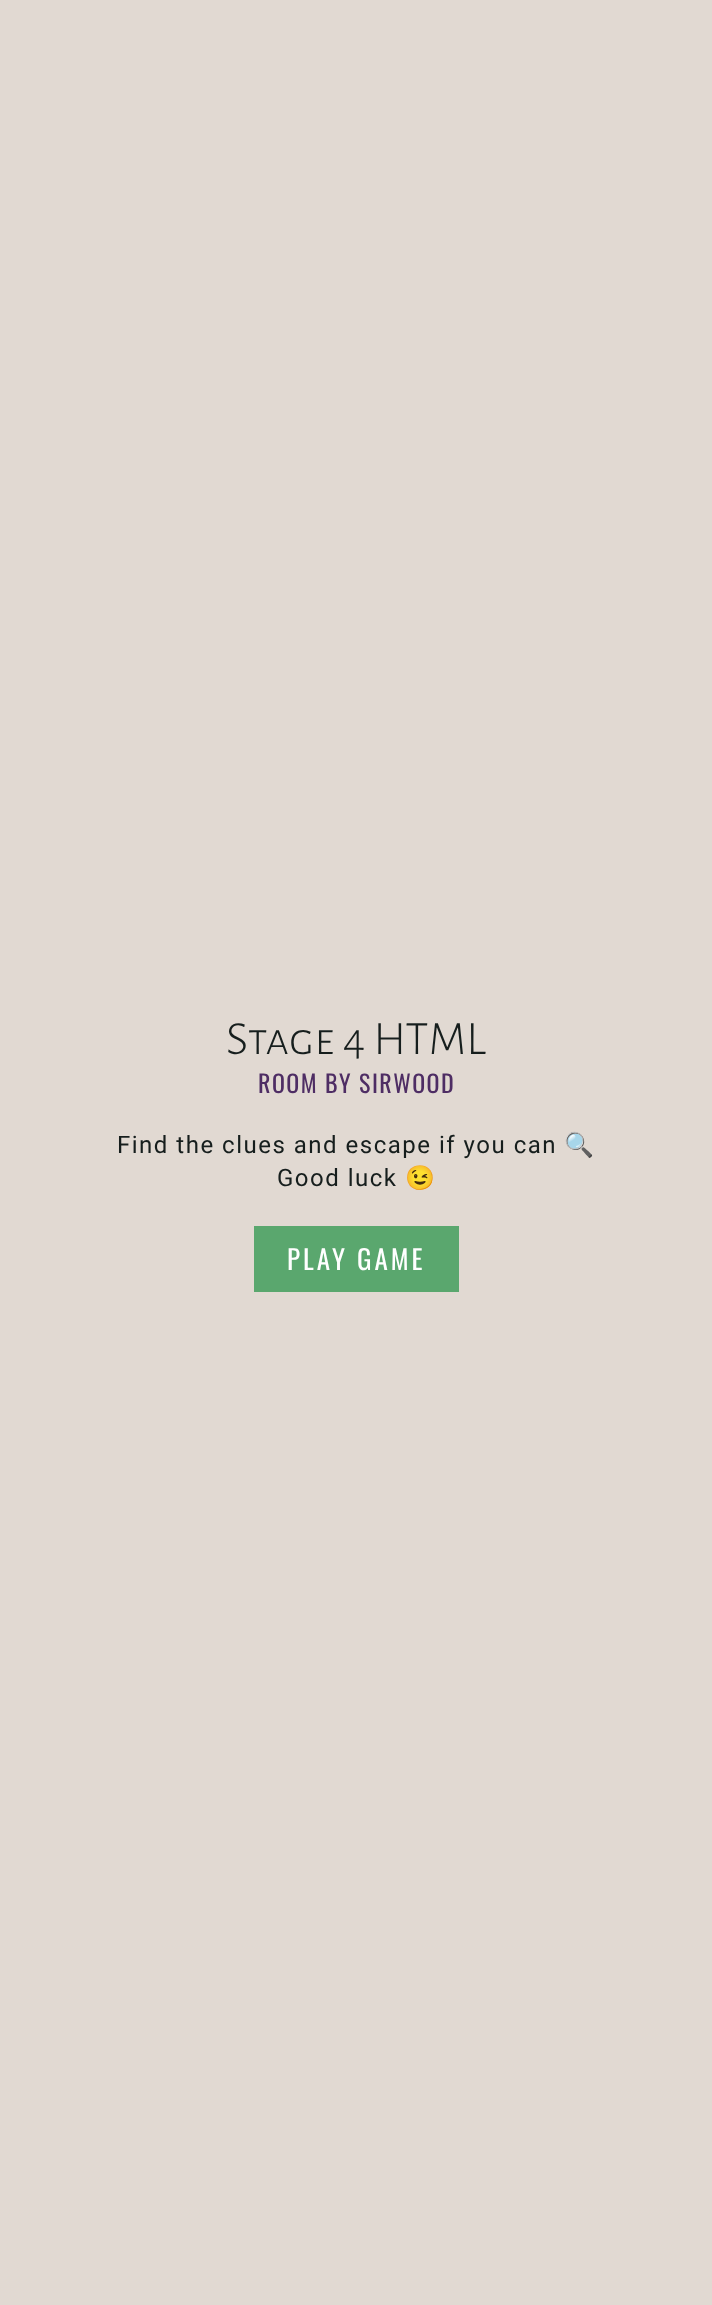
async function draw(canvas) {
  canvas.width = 712;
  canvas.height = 2305;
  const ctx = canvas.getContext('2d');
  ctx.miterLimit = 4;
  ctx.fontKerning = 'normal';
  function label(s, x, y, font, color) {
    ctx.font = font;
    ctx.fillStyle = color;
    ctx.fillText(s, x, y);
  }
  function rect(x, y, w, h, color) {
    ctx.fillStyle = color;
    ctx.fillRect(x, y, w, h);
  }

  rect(0, 0, 712, 2305, '#e1d9d2');
  label('Stage 4 HTML', 226, 1054, '300 48px Alegreya Sans SC', '#161e1d');
  ctx.letterSpacing = '1.5px';
  label('ROOM BY SIRWOOD', 258, 1093, '24px Oswald', '#4e2d64');
  label('Find the clues and escape if you can', 117, 1153, '24px Roboto', '#161e1d');
  label('🔍', 564, 1153, '24px Noto Color Emoji', '#161e1d');
  label('Good luck', 277, 1186, '24px Roboto', '#161e1d');
  label('😉', 405, 1186, '24px Noto Color Emoji', '#161e1d');
  rect(254, 1226, 205, 66, '#5aa76e');
  ctx.letterSpacing = '3px';
  label('PLAY GAME', 287, 1270, '27px Oswald', '#fff');
}

draw(document.querySelector('canvas'));
